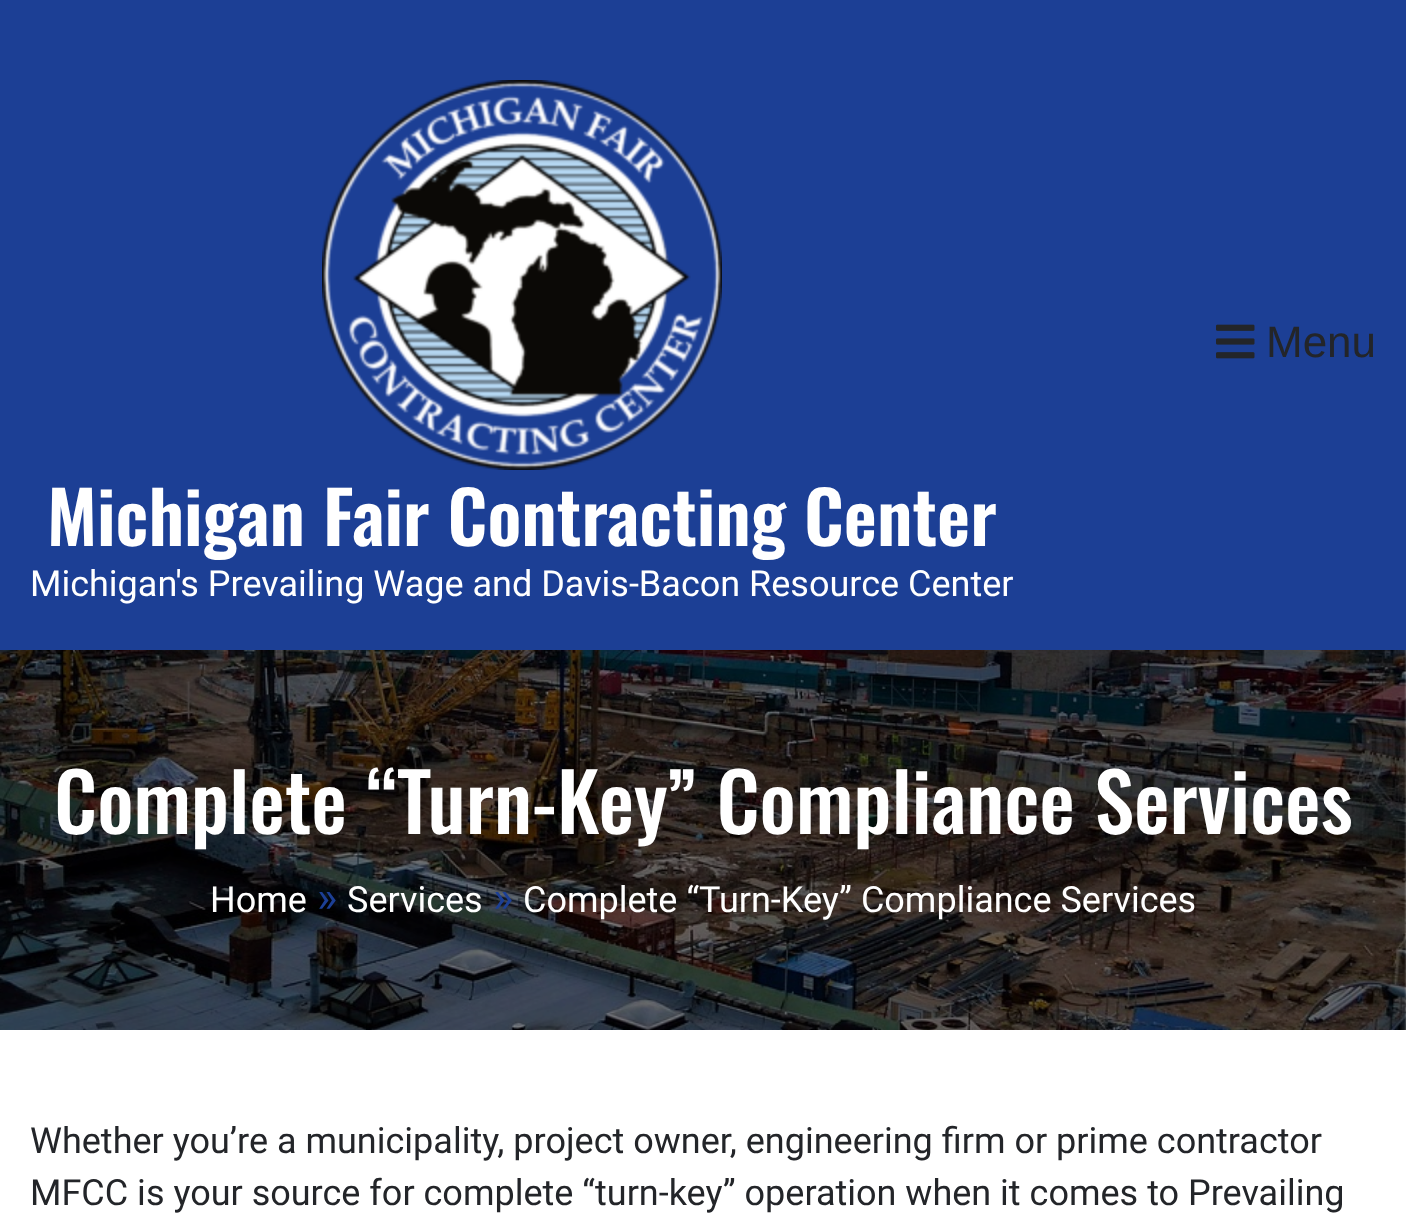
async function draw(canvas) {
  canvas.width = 1406;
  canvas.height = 1223;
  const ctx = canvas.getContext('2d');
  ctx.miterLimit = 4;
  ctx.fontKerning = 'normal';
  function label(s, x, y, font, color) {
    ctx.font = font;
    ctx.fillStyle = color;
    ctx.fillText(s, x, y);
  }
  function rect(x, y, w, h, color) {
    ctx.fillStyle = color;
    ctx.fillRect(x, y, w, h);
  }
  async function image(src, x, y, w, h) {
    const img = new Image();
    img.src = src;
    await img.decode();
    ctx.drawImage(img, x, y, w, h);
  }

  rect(0, 0, 1406, 1223, '#fff');
  rect(0, 0, 1406, 650, '#1c3f95');
  await image('assets/img1.png', 1216, 324, 39, 35);
  label('Menu', 1266, 357, '44px Liberation Sans', '#232529');
  await image('assets/img2.png', 322, 80, 400, 390);
  label('Michigan Fair Contracting Center', 47, 546, '600 72px Oswald', '#fff');
  label('Michigan\'s Prevailing Wage and Davis-Bacon Resource Center', 30, 596, '36px Roboto', '#fff');
  await image('assets/img3.png', 0, 650, 1406, 380);
  label('Complete “Turn-Key” Compliance Services', 54, 834, '500 80px Oswald', '#fff');
  label('Home', 210, 912, '36px Roboto', '#fff');
  label('»', 317, 912, '43px Roboto', '#1c3f95');
  label('Services', 347, 912, '36px Roboto', '#fff');
  label('»', 493, 912, '43px Roboto', '#1c3f95');
  label('Complete “Turn-Key” Compliance Services', 523, 912, '36px Roboto', '#fff');
  label('Whether you’re a municipality, project owner, engineering firm or prime contractor', 30, 1153, '36px Roboto', '#232529');
  label('MFCC is your source for complete “turn-key” operation when it comes to Prevailing', 30, 1205, '36px Roboto', '#232529');
}

draw(document.querySelector('canvas'));
